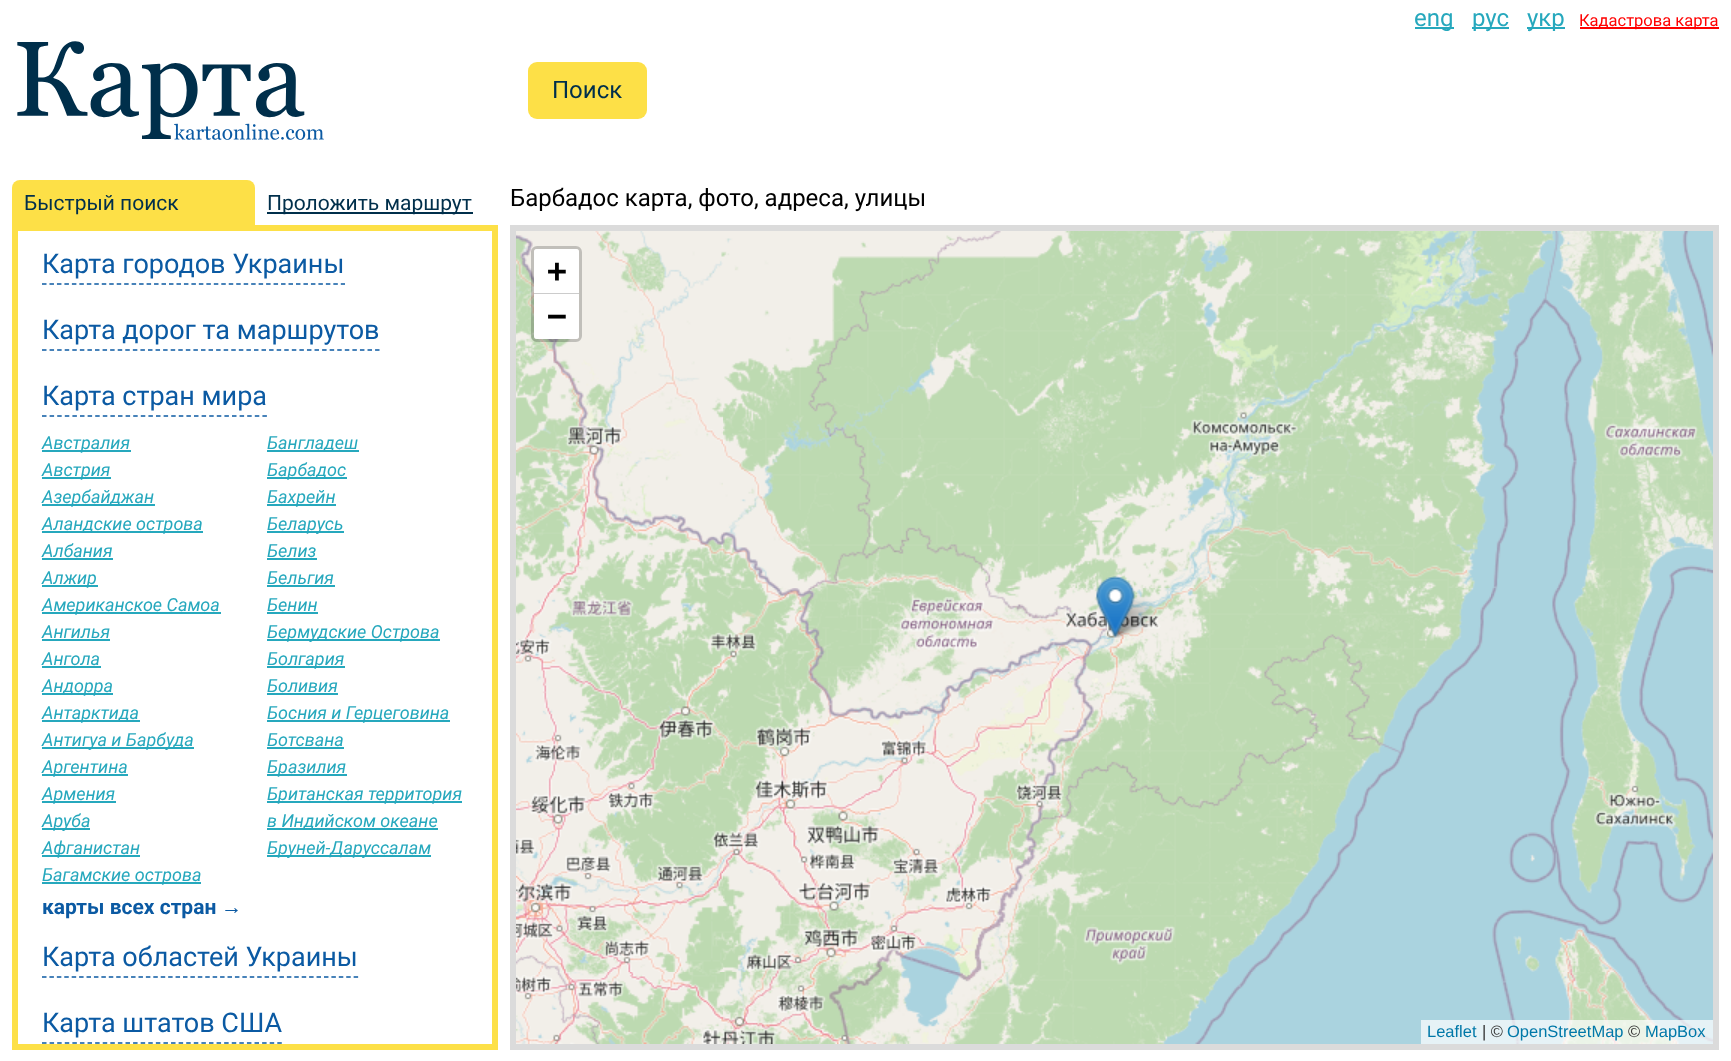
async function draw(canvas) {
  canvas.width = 1731;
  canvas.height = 1061;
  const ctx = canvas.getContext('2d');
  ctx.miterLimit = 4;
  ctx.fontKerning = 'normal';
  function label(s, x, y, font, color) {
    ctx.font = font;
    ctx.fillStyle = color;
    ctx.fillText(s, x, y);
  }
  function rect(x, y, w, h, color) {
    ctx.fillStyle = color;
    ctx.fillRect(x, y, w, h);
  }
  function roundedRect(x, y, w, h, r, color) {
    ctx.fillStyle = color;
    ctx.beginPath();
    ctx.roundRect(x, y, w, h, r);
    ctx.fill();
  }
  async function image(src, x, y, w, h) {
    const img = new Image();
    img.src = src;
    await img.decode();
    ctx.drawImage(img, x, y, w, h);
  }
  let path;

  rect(0, 0, 1731, 1061, '#fff');
  rect(1415, 27, 39, 2, '#26a8bd');
  label('eng', 1414, 26, '24px Roboto', '#26a8bd');
  rect(1472, 27, 37, 2, '#26a8bd');
  label('рус', 1472, 26, '24px Roboto', '#26a8bd');
  rect(1527, 27, 38, 2, '#26a8bd');
  label('укр', 1527, 26, '24px Roboto', '#26a8bd');
  rect(1580, 27, 139, 2, '#f00');
  label('Кадастрова карта', 1579, 26, '16.5px Roboto', '#f00');
  await image('assets/img1.png', 17, 41, 307, 99);
  roundedRect(528, 62, 119, 57, 9, '#fde047');
  label('Поиск', 552, 98, '24px Roboto', '#002f4b');
  ctx.fillStyle = '#fde047';
  ctx.beginPath();
  ctx.roundRect(12, 180, 243, 45, [8, 8, 0, 0]);
  ctx.fill();
  label('Быстрый поиск', 24, 210, '21px Roboto', '#002f4b');
  rect(267, 212, 206, 2, '#002f4b');
  label('Проложить маршрут', 267, 210, '21px Roboto', '#002f4b');
  ctx.strokeStyle = '#fde047';
  ctx.lineWidth = 6;
  ctx.strokeRect(15, 228, 480, 819);
  path = new Path2D('M42 284H345');
  ctx.strokeStyle = '#0b5aa3';
  ctx.lineWidth = 1.5;
  ctx.setLineDash([4.5, 2.97]);
  ctx.stroke(path);
  label('Карта городов Украины', 42, 273, '27px Roboto', '#0b5aa3');
  path = new Path2D('M42 350H379.5');
  ctx.setLineDash([4.5, 3.07]);
  ctx.stroke(path);
  label('Карта дорог та маршрутов', 42, 339, '27px Roboto', '#0b5aa3');
  path = new Path2D('M42 416H267');
  ctx.setLineDash([4.5, 3.1]);
  ctx.stroke(path);
  label('Карта стран мира', 42, 405, '27px Roboto', '#0b5aa3');
  rect(42, 450, 89, 2, '#26a8bd');
  label('Австралия', 42, 449, 'italic 18px Roboto', '#26a8bd');
  rect(267, 450, 92, 2, '#26a8bd');
  label('Бангладеш', 267, 449, 'italic 18px Roboto', '#26a8bd');
  rect(42, 477, 69, 2, '#26a8bd');
  label('Австрия', 42, 476, 'italic 18px Roboto', '#26a8bd');
  rect(267, 477, 80, 2, '#26a8bd');
  label('Барбадос', 267, 476, 'italic 18px Roboto', '#26a8bd');
  rect(42, 504, 113, 2, '#26a8bd');
  label('Азербайджан', 42, 503, 'italic 18px Roboto', '#26a8bd');
  rect(267, 504, 69, 2, '#26a8bd');
  label('Бахрейн', 267, 503, 'italic 18px Roboto', '#26a8bd');
  rect(42, 531, 161, 2, '#26a8bd');
  label('Аландские острова', 42, 530, 'italic 18px Roboto', '#26a8bd');
  rect(267, 531, 77, 2, '#26a8bd');
  label('Беларусь', 267, 530, 'italic 18px Roboto', '#26a8bd');
  label('Албания', 42, 557, 'italic 18px Roboto', '#26a8bd');
  rect(42, 558, 71, 2, '#26a8bd');
  label('Белиз', 267, 557, 'italic 18px Roboto', '#26a8bd');
  rect(267, 558, 50, 2, '#26a8bd');
  rect(42, 585, 56, 2, '#26a8bd');
  label('Алжир', 42, 584, 'italic 18px Roboto', '#26a8bd');
  label('Бельгия', 267, 584, 'italic 18px Roboto', '#26a8bd');
  rect(267, 585, 68, 2, '#26a8bd');
  rect(42, 612, 179, 2, '#26a8bd');
  label('Американское Самоа', 42, 611, 'italic 18px Roboto', '#26a8bd');
  label('Бенин', 267, 611, 'italic 18px Roboto', '#26a8bd');
  rect(267, 612, 51, 2, '#26a8bd');
  label('Ангилья', 42, 638, 'italic 18px Roboto', '#26a8bd');
  rect(42, 639, 68, 2, '#26a8bd');
  rect(267, 639, 173, 2, '#26a8bd');
  label('Бермудские Острова', 267, 638, 'italic 18px Roboto', '#26a8bd');
  label('Ангола', 42, 665, 'italic 18px Roboto', '#26a8bd');
  rect(42, 666, 59, 2, '#26a8bd');
  rect(267, 666, 78, 2, '#26a8bd');
  label('Болгария', 267, 665, 'italic 18px Roboto', '#26a8bd');
  rect(42, 693, 71, 2, '#26a8bd');
  label('Андорра', 42, 692, 'italic 18px Roboto', '#26a8bd');
  label('Боливия', 267, 692, 'italic 18px Roboto', '#26a8bd');
  rect(267, 693, 71, 2, '#26a8bd');
  rect(42, 720, 98, 2, '#26a8bd');
  label('Антарктида', 42, 719, 'italic 18px Roboto', '#26a8bd');
  rect(267, 720, 183, 2, '#26a8bd');
  label('Босния и Герцеговина', 267, 719, 'italic 18px Roboto', '#26a8bd');
  rect(42, 747, 152, 2, '#26a8bd');
  label('Антигуа и Барбуда', 42, 746, 'italic 18px Roboto', '#26a8bd');
  label('Ботсвана', 267, 746, 'italic 18px Roboto', '#26a8bd');
  rect(267, 747, 77, 2, '#26a8bd');
  rect(42, 774, 86, 2, '#26a8bd');
  label('Аргентина', 42, 773, 'italic 18px Roboto', '#26a8bd');
  rect(267, 774, 80, 2, '#26a8bd');
  label('Бразилия', 267, 773, 'italic 18px Roboto', '#26a8bd');
  rect(42, 801, 74, 2, '#26a8bd');
  label('Армения', 42, 800, 'italic 18px Roboto', '#26a8bd');
  rect(267, 801, 195, 2, '#26a8bd');
  label('Британская территория', 267, 800, 'italic 18px Roboto', '#26a8bd');
  rect(267, 828, 171, 2, '#26a8bd');
  label('в Индийском океане', 267, 827, 'italic 18px Roboto', '#26a8bd');
  rect(42, 828, 48, 2, '#26a8bd');
  label('Аруба', 42, 827, 'italic 18px Roboto', '#26a8bd');
  rect(42, 855, 98, 2, '#26a8bd');
  label('Афганистан', 42, 854, 'italic 18px Roboto', '#26a8bd');
  rect(267, 855, 164, 2, '#26a8bd');
  label('Бруней-Даруссалам', 267, 854, 'italic 18px Roboto', '#26a8bd');
  rect(42, 882, 159, 2, '#26a8bd');
  label('Багамские острова', 42, 881, 'italic 18px Roboto', '#26a8bd');
  label('карты всех стран', 42, 914, 'bold 21px Roboto', '#0b5aa3');
  label('→', 221, 914, 'bold 21px Liberation Sans', '#0b5aa3');
  path = new Path2D('M42 977H358.5');
  ctx.setLineDash([4.5, 2.92]);
  ctx.stroke(path);
  label('Карта областей Украины', 42, 966, '27px Roboto', '#0b5aa3');
  path = new Path2D('M42 1043H282');
  ctx.setLineDash([4.5, 3.09]);
  ctx.stroke(path);
  label('Карта штатов США', 42, 1032, '27px Roboto', '#0b5aa3');
  label('Барбадос карта, фото, адреса, улицы', 510, 206, '24px Roboto', '#000');
  ctx.strokeStyle = '#dbdbdb';
  ctx.lineWidth = 6;
  ctx.setLineDash([]);
  ctx.strokeRect(513, 228, 1203, 819);
  await image('assets/img2.png', 516, 231, 207, 357);
  await image('assets/img3.png', 723, 231, 384, 357);
  await image('assets/img4.png', 1107, 231, 384, 357);
  await image('assets/img5.png', 1491, 231, 222, 357);
  await image('assets/img6.png', 516, 588, 207, 384);
  await image('assets/img7.png', 723, 588, 384, 384);
  await image('assets/img8.png', 1107, 588, 384, 384);
  await image('assets/img9.png', 1491, 588, 222, 384);
  await image('assets/img10.png', 516, 972, 207, 72);
  await image('assets/img11.png', 723, 972, 384, 72);
  await image('assets/img12.png', 1107, 972, 384, 72);
  await image('assets/img13.png', 1491, 972, 222, 72);
  await image('assets/img15.png', 1110, 595, 45, 43);
  await image('assets/img14.png', 1096, 576, 39, 62);
  ctx.beginPath();
  ctx.roundRect(532.5, 247.5, 48, 93, 4.5);
  ctx.strokeStyle = '#00000033';
  ctx.lineWidth = 3;
  ctx.stroke();
  ctx.fillStyle = '#fff';
  ctx.beginPath();
  ctx.roundRect(534, 249, 45, 44, [3, 3, 0, 0]);
  ctx.fill();
  rect(534, 293, 45, 1, '#ccc');
  label('+', 547, 282, 'bold 33px DejaVu Sans Mono', '#000');
  ctx.fillStyle = '#fff';
  ctx.beginPath();
  ctx.roundRect(534, 294, 45, 45, [0, 0, 3, 3]);
  ctx.fill();
  label('−', 547, 327, 'bold 33px DejaVu Sans Mono', '#000');
  rect(1421, 1020, 292, 24, '#ffffffb3');
  label('Leaflet', 1427, 1037, '16.5px Liberation Sans', '#0078a8');
  label('| ©', 1482, 1037, '16.5px Liberation Sans', '#333');
  label('OpenStreetMap', 1507, 1037, '16.5px Liberation Sans', '#0078a8');
  label('©', 1628, 1037, '16.5px Liberation Sans', '#333');
  label('MapBox', 1645, 1037, '16.5px Liberation Sans', '#0078a8');
}

draw(document.querySelector('canvas'));
